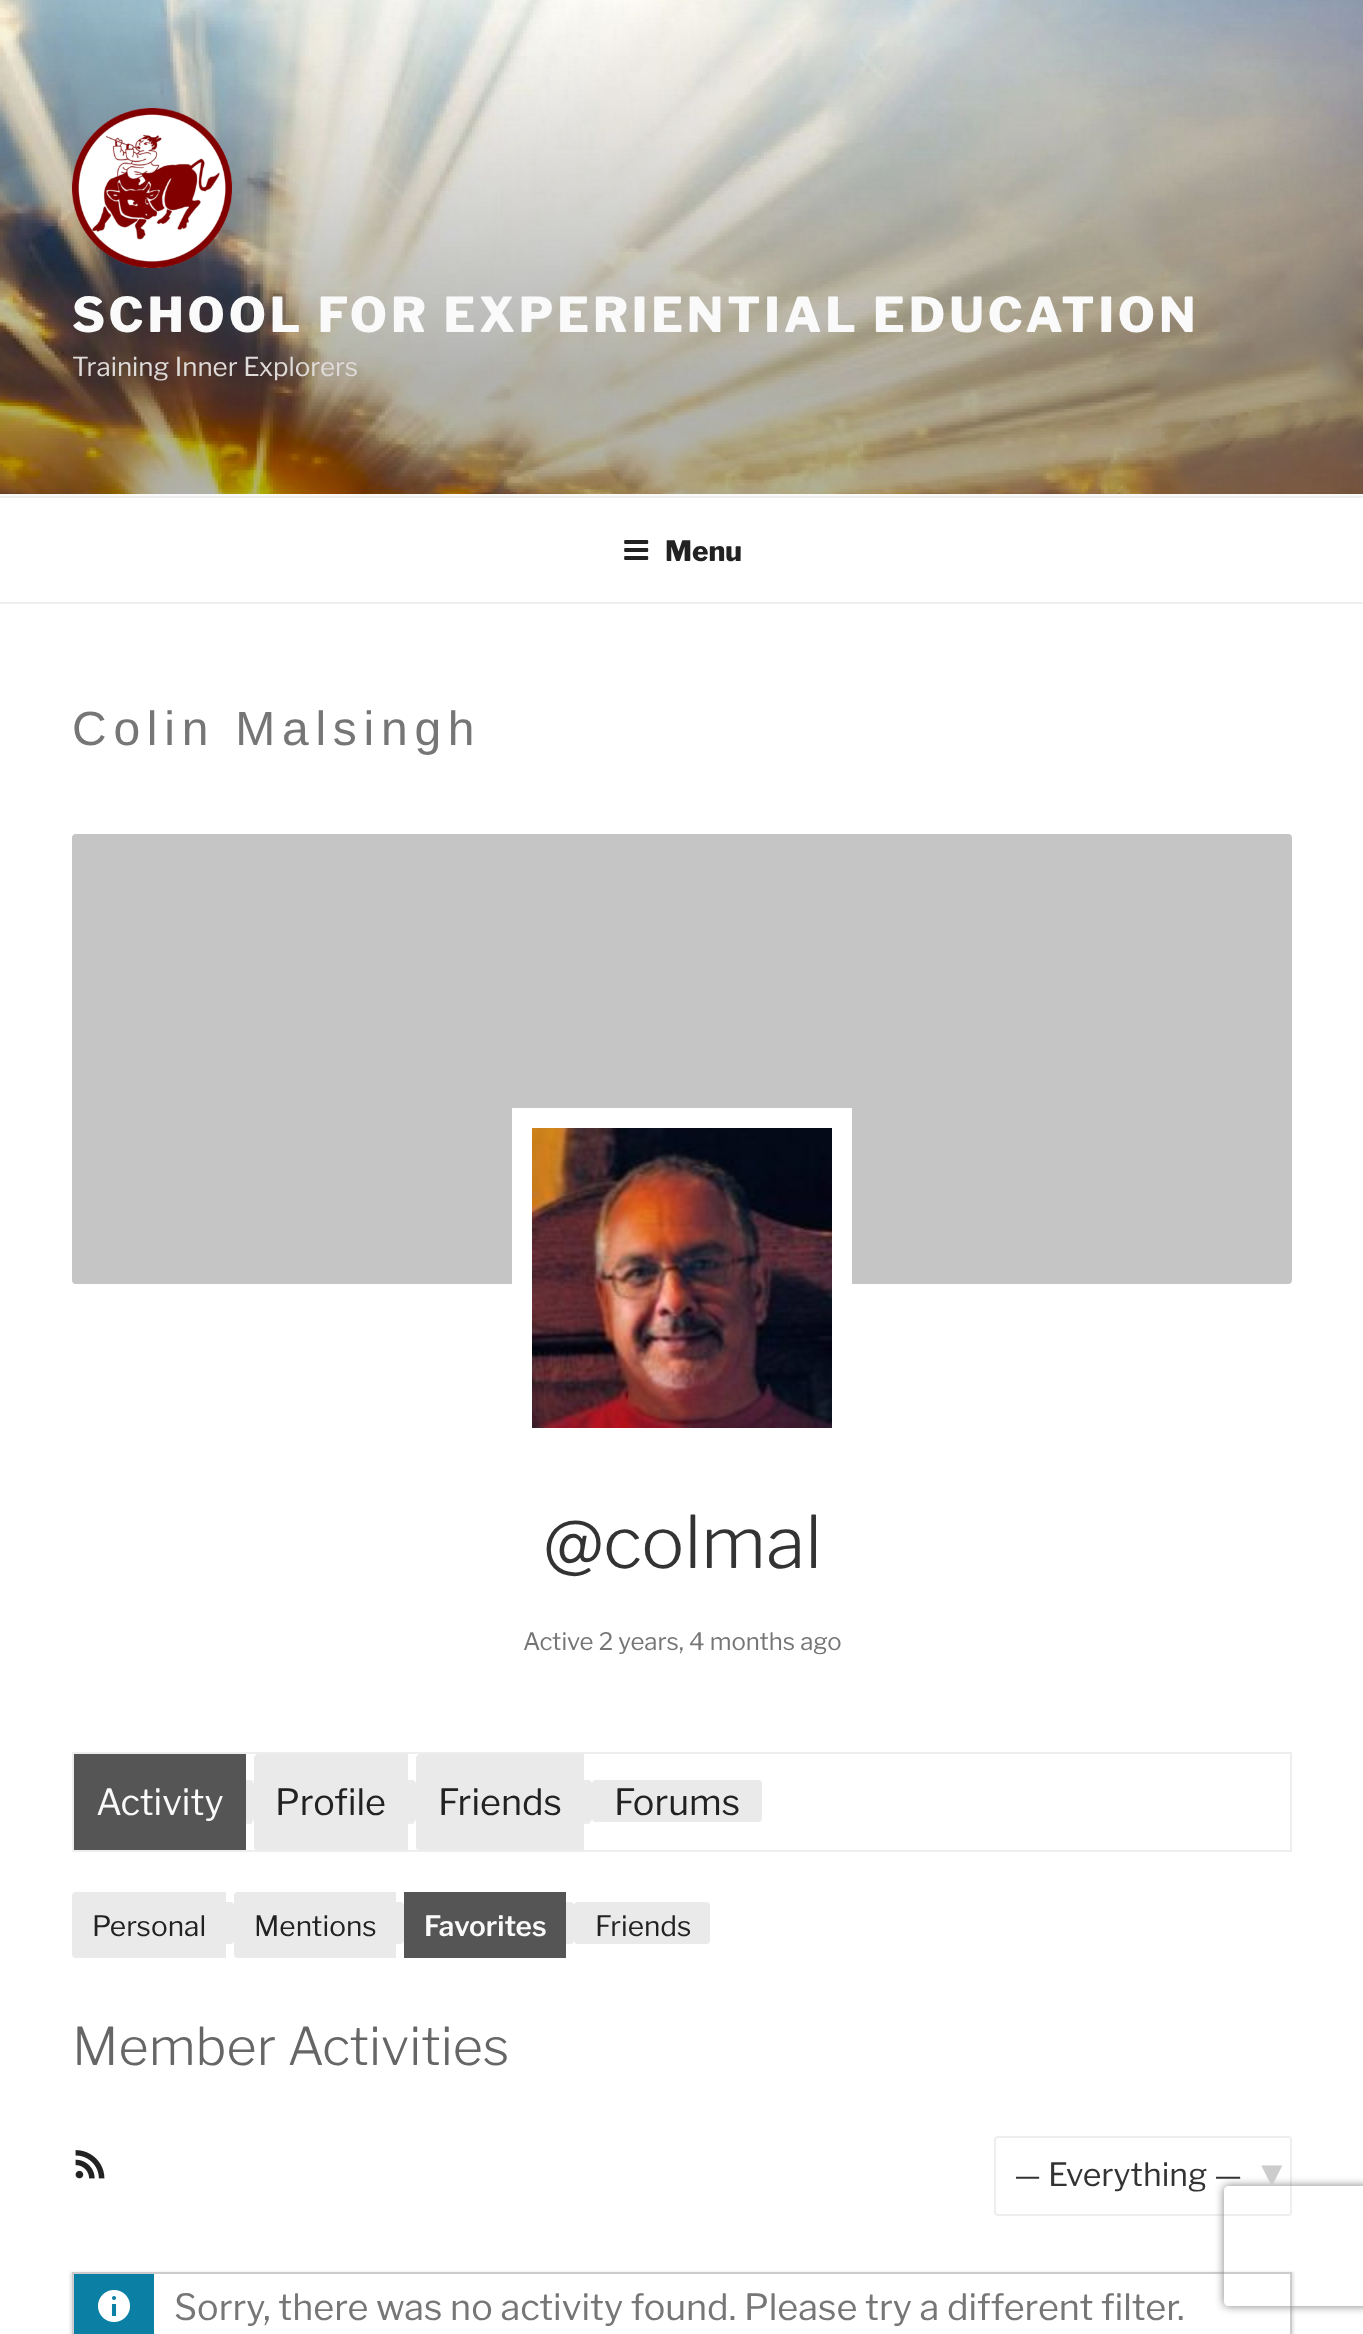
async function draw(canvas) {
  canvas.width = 1363;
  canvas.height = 2334;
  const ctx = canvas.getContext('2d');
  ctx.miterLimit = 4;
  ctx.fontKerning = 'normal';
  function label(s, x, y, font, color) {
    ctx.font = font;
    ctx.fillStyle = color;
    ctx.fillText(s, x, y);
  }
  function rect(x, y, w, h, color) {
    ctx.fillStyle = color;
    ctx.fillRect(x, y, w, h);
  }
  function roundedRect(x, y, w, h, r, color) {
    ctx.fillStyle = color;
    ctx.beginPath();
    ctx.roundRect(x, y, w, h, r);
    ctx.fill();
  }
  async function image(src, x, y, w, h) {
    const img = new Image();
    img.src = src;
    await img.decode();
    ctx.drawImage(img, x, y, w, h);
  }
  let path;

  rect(0, 0, 1363, 2334, '#fff');
  rect(0, 494, 1363, 2, '#fafafa');
  await image('assets/img1.png', 0, 0, 1363, 494);
  await image('assets/img2.png', 72, 108, 160, 160);
  ctx.letterSpacing = '3.85px';
  label('SCHOOL FOR EXPERIENTIAL EDUCATION', 72, 332, '100 48px Libre Franklin', '#fafafa');
  ctx.letterSpacing = '0px';
  label('Training Inner Explorers', 72, 376, '100 26px "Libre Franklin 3"', '#dfdbd9');
  rect(0, 496, 1363, 2, '#eee');
  rect(0, 602, 1363, 2, '#eee');
  await image('assets/img3.png', 624, 540, 25, 20);
  label('Menu', 665, 561, '100 28px Libre Franklin', '#222');
  ctx.letterSpacing = '6.75px';
  label('Colin Malsingh', 72, 745, '48px Liberation Sans', '#767676');
  roundedRect(72, 834, 1220, 450, 4, '#c5c5c5');
  ctx.strokeStyle = '#fff';
  ctx.lineWidth = 16;
  ctx.strokeRect(520, 1116, 324, 324);
  ctx.lineWidth = 4;
  ctx.strokeRect(530, 1126, 304, 304);
  await image('assets/img4.png', 532, 1128, 300, 300);
  ctx.letterSpacing = '0px';
  label('@colmal', 543, 1568, '100 72px "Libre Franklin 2"', '#333');
  label('Active 2 years, 4 months ago', 523, 1650, '100 24px "Libre Franklin 3"', '#767676');
  ctx.strokeStyle = '#eee';
  ctx.lineWidth = 2;
  ctx.strokeRect(73, 1753, 1218, 98);
  ctx.fillStyle = '#eaeaea';
  path = new Path2D('M246 1780C255 1780 254 1781 254 1790V1814C254 1823 254 1822 246 1822Z');
  ctx.fill(path);
  rect(246, 1822, 6, 2, '#eee');
  rect(74, 1754, 172, 96, '#555');
  label('Activity', 96, 1815, '100 36px "Libre Franklin 3"', '#fafafa');
  ctx.fillStyle = '#eaeaea';
  path = new Path2D('M258 1754H408V1850H258C256 1850 254 1849 254 1848V1758C254 1756 256 1754 258 1754Z');
  ctx.fill(path);
  path = new Path2D('M408 1780C417 1780 416 1781 416 1790V1814C416 1823 416 1822 408 1822Z');
  ctx.fill(path);
  rect(408, 1822, 6, 2, '#eee');
  label('Profile', 275, 1815, '100 36px "Libre Franklin 3"', '#222');
  ctx.fillStyle = '#eaeaea';
  path = new Path2D('M420 1754H584V1850H420C418 1850 416 1849 416 1848V1758C416 1756 418 1754 420 1754Z');
  ctx.fill(path);
  path = new Path2D('M584 1780C593 1780 592 1781 592 1790V1814C592 1823 592 1822 584 1822Z');
  ctx.fill(path);
  rect(584, 1822, 6, 2, '#eee');
  label('Friends', 438, 1815, '100 36px "Libre Franklin 3"', '#222');
  roundedRect(592, 1780, 170, 42, 4, '#eaeaea');
  label('Forums', 614, 1815, '100 36px "Libre Franklin 3"', '#222');
  ctx.fillStyle = '#eaeaea';
  ctx.beginPath();
  ctx.roundRect(72, 1892, 154, 66, [4, 0, 0, 4]);
  ctx.fill();
  ctx.beginPath();
  ctx.roundRect(226, 1902, 8, 42, [0, 4, 4, 0]);
  ctx.fill();
  label('Personal', 92, 1936, '100 28px "Libre Franklin 3"', '#222');
  ctx.fillStyle = '#eaeaea';
  ctx.beginPath();
  ctx.roundRect(234, 1892, 162, 66, [4, 0, 0, 4]);
  ctx.fill();
  ctx.beginPath();
  ctx.roundRect(396, 1902, 8, 42, [0, 4, 4, 0]);
  ctx.fill();
  label('Mentions', 254, 1936, '100 28px "Libre Franklin 3"', '#222');
  ctx.fillStyle = '#eaeaea';
  ctx.beginPath();
  ctx.roundRect(566, 1902, 8, 42, [0, 4, 4, 0]);
  ctx.fill();
  rect(404, 1892, 162, 66, '#555');
  label('Favorites', 424, 1936, '100 28px "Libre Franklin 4"', '#fafafa');
  roundedRect(574, 1902, 136, 42, 4, '#eaeaea');
  label('Friends', 595, 1936, '100 28px "Libre Franklin 3"', '#222');
  label('Member Activities', 72, 2065, '100 52px "Libre Franklin 2"', '#666');
  await image('assets/img5.png', 75, 2150, 30, 29);
  ctx.beginPath();
  ctx.roundRect(995, 2137, 296, 78, 3);
  ctx.stroke();
  ctx.save();
  path = new Path2D('M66 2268H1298V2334H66ZM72 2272H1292V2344H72Z');
  ctx.clip(path, 'evenodd');
  ctx.fillStyle = '#0000001a';
  ctx.filter = 'blur(1px)';
  ctx.beginPath();
  ctx.rect(70, 2272, 1224, 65);
  ctx.fill();
  ctx.filter = 'none';
  ctx.restore();
  ctx.strokeStyle = '#ccc';
  ctx.strokeRect(73, 2273, 1218, 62);
  ctx.save();
  path = new Path2D('M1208 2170H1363V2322H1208ZM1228 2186H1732C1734 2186 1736 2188 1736 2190V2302C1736 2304 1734 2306 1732 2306H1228C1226 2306 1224 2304 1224 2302V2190C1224 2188 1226 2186 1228 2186Z');
  ctx.clip(path, 'evenodd');
  ctx.fillStyle = '#808080';
  ctx.filter = 'blur(5px)';
  ctx.beginPath();
  ctx.roundRect(1224, 2186, 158, 120, 4);
  ctx.fill();
  ctx.filter = 'none';
  ctx.restore();
  ctx.save();
  ctx.beginPath();
  ctx.rect(1016, 2150, 230, 52);
  ctx.clip();
  label('— Everything —', 1013, 2186, '100 32px "Libre Franklin 3"', '#333');
  ctx.restore();
  label('▼', 1254, 2186, '36px Liberation Sans', '#ccc');
  rect(74, 2274, 80, 60, '#0b80a4');
  await image('assets/img6.png', 98, 2290, 32, 32);
  label('Sorry, there was no activity found. Please try a different filter.', 174, 2320, '100 36px "Libre Franklin 3"', '#767676');
}

draw(document.querySelector('canvas'));
